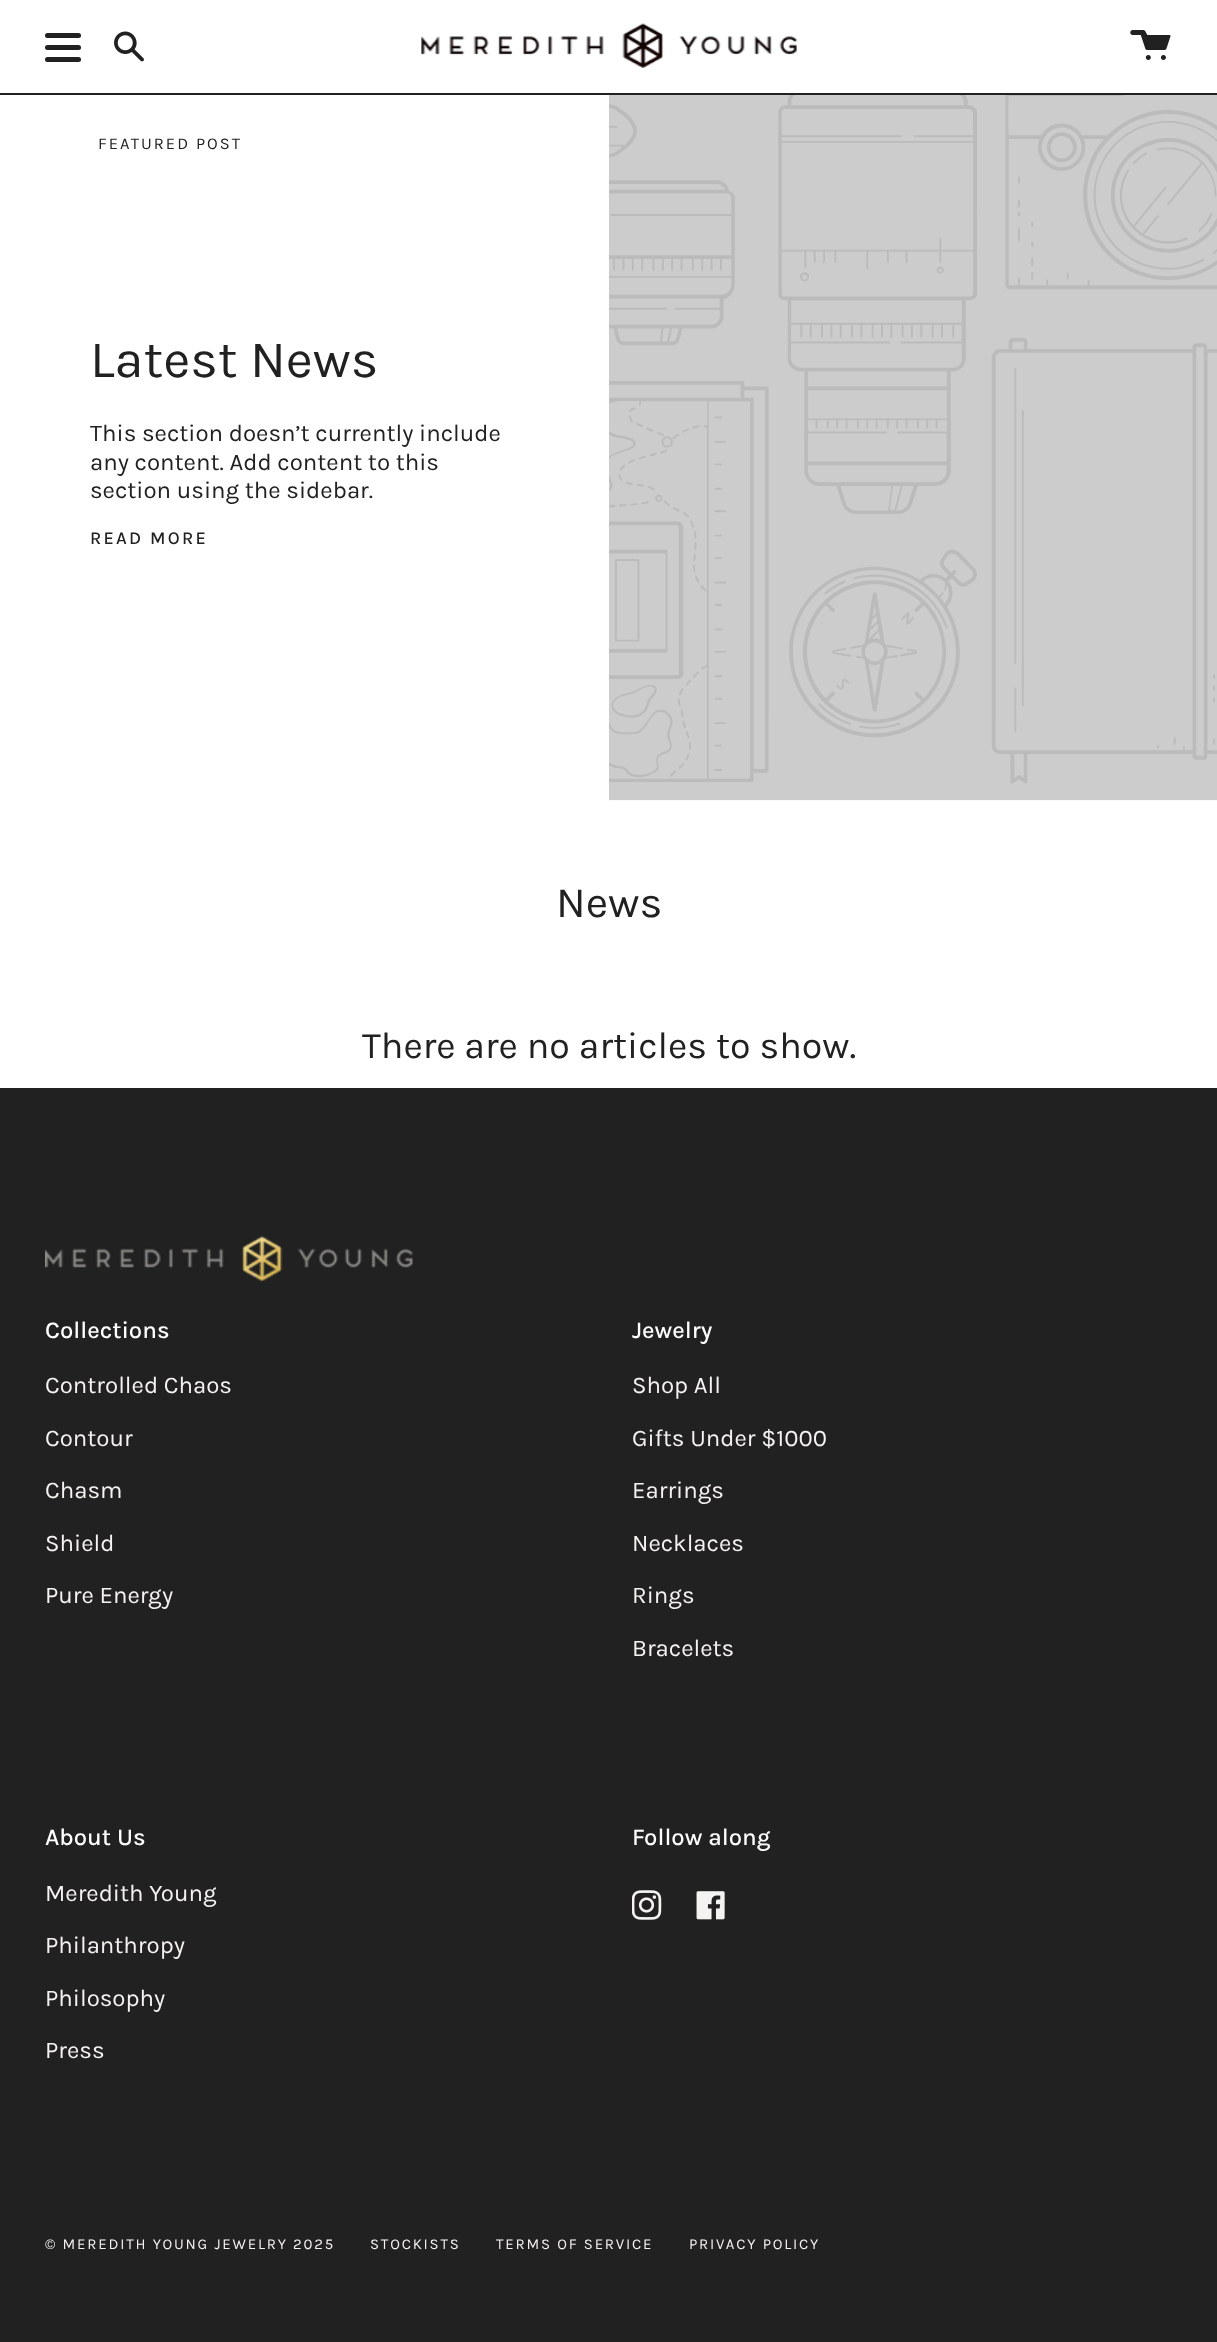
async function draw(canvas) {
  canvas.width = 1217;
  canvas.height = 2342;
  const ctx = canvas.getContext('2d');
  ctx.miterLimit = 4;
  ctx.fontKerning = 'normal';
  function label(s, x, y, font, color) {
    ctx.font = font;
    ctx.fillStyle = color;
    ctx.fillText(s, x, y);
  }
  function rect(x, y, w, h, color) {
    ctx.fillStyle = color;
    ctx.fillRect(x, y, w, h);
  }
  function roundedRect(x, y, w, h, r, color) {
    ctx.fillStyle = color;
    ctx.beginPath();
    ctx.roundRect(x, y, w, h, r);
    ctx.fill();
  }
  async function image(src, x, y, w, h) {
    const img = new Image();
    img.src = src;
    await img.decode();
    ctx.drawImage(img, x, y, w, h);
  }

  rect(0, 0, 1217, 2342, '#fff');
  rect(0, 93, 1217, 2, '#212121');
  roundedRect(45, 33, 36, 5, 2.5, '#212121');
  roundedRect(45, 45, 36, 5, 2.5, '#212121');
  roundedRect(45, 57, 36, 5, 2.5, '#212121');
  await image('assets/img1.png', 114, 31, 30, 31);
  await image('assets/img2.png', 421, 23, 376, 45);
  await image('assets/img3.png', 1130, 30, 41, 30);
  ctx.letterSpacing = '2px';
  label('FEATURED POST', 98, 149, '16.5px Karla', '#212121');
  ctx.letterSpacing = '0px';
  label('Latest News', 90, 377, '52.5px Karla', '#212121');
  label('This section doesn’t currently include', 90, 441, '24px Karla', '#212121');
  label('any content. Add content to this', 90, 470, '24px Karla', '#212121');
  label('section using the sidebar.', 90, 498, '24px Karla', '#212121');
  ctx.letterSpacing = '2.25px';
  label('READ MORE', 90, 544, '500 18px Karla', '#212121');
  await image('assets/img4.png', 609, 95, 608, 706);
  ctx.letterSpacing = '0px';
  label('News', 556, 917, '43.5px Karla', '#212121');
  label('There are no articles to show.', 362, 1058, '37.5px Karla', '#212121');
  rect(0, 1088, 1217, 1254, '#212121');
  await image('assets/img5.png', 45, 1235, 368, 47);
  label('Collections', 45, 1338, '500 24px Karla', '#fff');
  label('Controlled Chaos', 45, 1393, '24px Karla', '#f5f3f1');
  label('Contour', 45, 1446, '24px Karla', '#f5f3f1');
  label('Chasm', 45, 1498, '24px Karla', '#f5f3f1');
  label('Shield', 45, 1551, '24px Karla', '#f5f3f1');
  label('Pure Energy', 45, 1603, '24px Karla', '#f5f3f1');
  label('Jewelry', 632, 1338, '500 24px Karla', '#fff');
  label('Shop All', 632, 1393, '24px Karla', '#f5f3f1');
  label('Gifts Under $1000', 632, 1446, '24px Karla', '#f5f3f1');
  label('Earrings', 632, 1498, '24px Karla', '#f5f3f1');
  label('Necklaces', 632, 1551, '24px Karla', '#f5f3f1');
  label('Rings', 632, 1603, '24px Karla', '#f5f3f1');
  label('Bracelets', 632, 1656, '24px Karla', '#f5f3f1');
  label('About Us', 45, 1845, '500 24px Karla', '#fff');
  label('Meredith Young', 45, 1901, '24px Karla', '#f5f3f1');
  label('Philanthropy', 45, 1953, '24px Karla', '#f5f3f1');
  label('Philosophy', 45, 2006, '24px Karla', '#f5f3f1');
  label('Press', 45, 2058, '24px Karla', '#f5f3f1');
  label('Follow along', 632, 1845, '500 24px Karla', '#fff');
  await image('assets/img6.png', 632, 1890, 30, 30);
  await image('assets/img7.png', 696, 1891, 29, 29);
  ctx.letterSpacing = '1.8px';
  label('© MEREDITH YOUNG JEWELRY 2025', 45, 2249, '15px Karla', '#f5f3f1');
  label('STOCKISTS', 370, 2249, '15px Karla', '#f5f3f1');
  label('TERMS OF SERVICE', 496, 2249, '15px Karla', '#f5f3f1');
  label('PRIVACY POLICY', 689, 2249, '15px Karla', '#f5f3f1');
}

draw(document.querySelector('canvas'));
